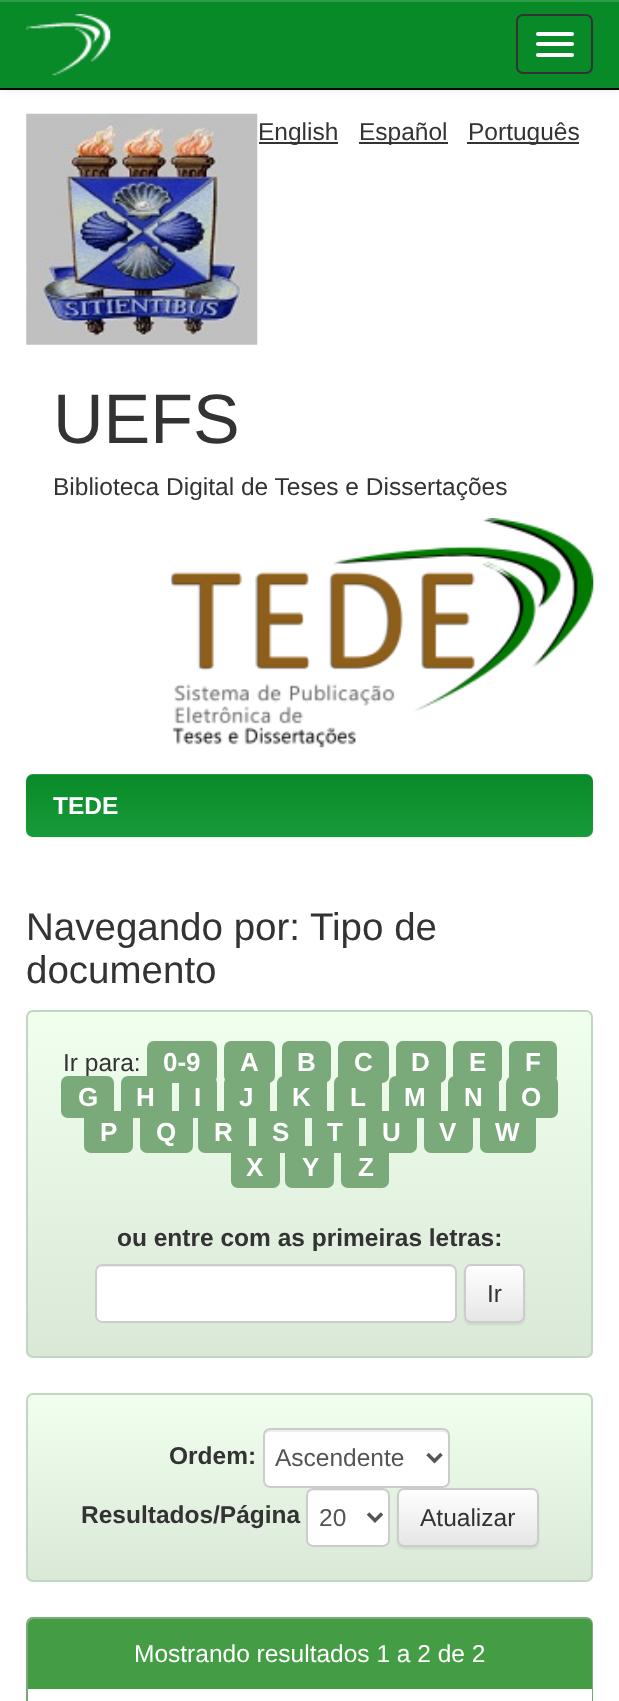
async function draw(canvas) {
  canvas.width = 619;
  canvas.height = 1701;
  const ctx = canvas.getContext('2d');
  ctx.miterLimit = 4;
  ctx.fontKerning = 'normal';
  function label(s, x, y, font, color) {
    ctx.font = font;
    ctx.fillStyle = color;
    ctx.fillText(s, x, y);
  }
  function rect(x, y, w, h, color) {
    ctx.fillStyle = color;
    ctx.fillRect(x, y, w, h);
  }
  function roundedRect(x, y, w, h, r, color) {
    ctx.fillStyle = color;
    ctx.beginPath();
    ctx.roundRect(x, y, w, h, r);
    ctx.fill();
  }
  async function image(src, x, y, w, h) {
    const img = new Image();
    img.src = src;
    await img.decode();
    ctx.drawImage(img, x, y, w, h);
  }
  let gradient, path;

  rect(0, 0, 619, 1701, '#fff');
  ctx.fillStyle = '#00000012';
  ctx.filter = 'blur(4.5px)';
  ctx.beginPath();
  ctx.rect(0, 2, 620, 89);
  ctx.fill();
  ctx.filter = 'none';
  rect(0, 2, 619, 86, '#088a29');
  rect(0, 0, 619, 2, '#2d9c49');
  rect(0, 88, 619, 2, '#080808');
  await image('assets/img1.png', 26, 14, 85, 62);
  ctx.beginPath();
  ctx.roundRect(517, 15, 75, 58, 6);
  ctx.strokeStyle = '#333';
  ctx.lineWidth = 2;
  ctx.stroke();
  roundedRect(536, 32, 38, 4, 2, '#fff');
  roundedRect(536, 42, 38, 4, 2, '#fff');
  roundedRect(536, 53, 38, 4, 2, '#fff');
  rect(259, 142, 79, 2, '#333');
  label('English', 258, 140, '24.5px Liberation Sans', '#333');
  rect(359, 142, 89, 2, '#333');
  label('Español', 359, 140, '24.5px Liberation Sans', '#333');
  rect(467, 142, 112, 2, '#333');
  label('Português', 468, 140, '24.5px Liberation Sans', '#333');
  await image('assets/img2.png', 26, 113, 232, 232);
  label('UEFS', 53, 443, '70px Liberation Sans', '#333');
  label('Biblioteca Digital de Teses e Dissertações', 53, 495, '24.5px Liberation Sans', '#333');
  await image('assets/img3.png', 169, 518, 425, 230);
  ctx.fillStyle = '#00000012';
  ctx.filter = 'blur(1px)';
  ctx.beginPath();
  ctx.roundRect(26, 775, 567, 63, 7);
  ctx.fill();
  ctx.filter = 'none';
  gradient = ctx.createLinearGradient(310, 774, 310, 837);
  gradient.addColorStop(0, '#088a29');
  gradient.addColorStop(1, '#189a3a');
  ctx.fillStyle = gradient;
  ctx.beginPath();
  ctx.roundRect(26, 774, 567, 63, 7);
  ctx.fill();
  ctx.fillStyle = '#ffffff26';
  path = new Path2D('M33 775H586C590 775 593 778 593 782C593 778 591 774 586 774H33C28 774 26 778 26 782C26 778 29 775 33 775Z');
  ctx.fill(path);
  label('TEDE', 53, 814, 'bold 24.5px Liberation Sans', '#fff');
  label('Navegando por: Tipo de', 26, 940, '38.5px Liberation Sans', '#333');
  label('documento', 26, 983, '38.5px Liberation Sans', '#333');
  ctx.save();
  ctx.beginPath();
  ctx.roundRect(26, 1010, 567, 348, 7);
  ctx.clip();
  gradient = ctx.createLinearGradient(310, 1012, 310, 1356);
  gradient.addColorStop(0, '#f1ffee');
  gradient.addColorStop(1, '#dae8d7');
  ctx.fillStyle = gradient;
  ctx.fillRect(26, 1012, 567, 344);
  ctx.restore();
  ctx.beginPath();
  ctx.roundRect(27, 1011, 565, 346, 6);
  ctx.strokeStyle = '#bed7be';
  ctx.stroke();
  label('Ir para:', 63, 1071, '24.5px Liberation Sans', '#333');
  roundedRect(147, 1041, 70, 42, 7, '#7aa97a');
  label('0-9', 163, 1071, 'bold 26px Liberation Sans', '#fff');
  roundedRect(224, 1041, 51, 42, 7, '#7aa97a');
  label('A', 240, 1071, 'bold 26px Liberation Sans', '#fff');
  roundedRect(282, 1041, 49, 42, 7, '#7aa97a');
  label('B', 297, 1071, 'bold 26px Liberation Sans', '#fff');
  roundedRect(338, 1041, 51, 42, 7, '#7aa97a');
  label('C', 354, 1071, 'bold 26px Liberation Sans', '#fff');
  roundedRect(396, 1041, 50, 42, 7, '#7aa97a');
  label('D', 411, 1071, 'bold 26px Liberation Sans', '#fff');
  roundedRect(453, 1041, 49, 42, 7, '#7aa97a');
  label('E', 469, 1071, 'bold 26px Liberation Sans', '#fff');
  roundedRect(509, 1041, 48, 42, 7, '#7aa97a');
  label('F', 525, 1071, 'bold 26px Liberation Sans', '#fff');
  roundedRect(61, 1076, 53, 42, 7, '#7aa97a');
  label('G', 78, 1106, 'bold 26px Liberation Sans', '#fff');
  roundedRect(121, 1076, 51, 42, 7, '#7aa97a');
  label('H', 136, 1106, 'bold 26px Liberation Sans', '#fff');
  roundedRect(179, 1076, 38, 42, 7, '#7aa97a');
  label('I', 194, 1106, 'bold 26px Liberation Sans', '#fff');
  roundedRect(224, 1076, 46, 42, 7, '#7aa97a');
  label('J', 239, 1106, 'bold 26px Liberation Sans', '#fff');
  roundedRect(277, 1076, 50, 42, 7, '#7aa97a');
  label('K', 292, 1106, 'bold 26px Liberation Sans', '#fff');
  roundedRect(334, 1076, 48, 42, 7, '#7aa97a');
  label('L', 350, 1106, 'bold 26px Liberation Sans', '#fff');
  roundedRect(389, 1076, 52, 42, 7, '#7aa97a');
  label('M', 404, 1106, 'bold 26px Liberation Sans', '#fff');
  roundedRect(448, 1076, 51, 42, 7, '#7aa97a');
  label('N', 464, 1106, 'bold 26px Liberation Sans', '#fff');
  roundedRect(506, 1076, 52, 42, 7, '#7aa97a');
  label('O', 521, 1106, 'bold 26px Liberation Sans', '#fff');
  roundedRect(84, 1111, 49, 42, 7, '#7aa97a');
  label('P', 100, 1141, 'bold 26px Liberation Sans', '#fff');
  roundedRect(140, 1111, 53, 42, 7, '#7aa97a');
  label('Q', 156, 1141, 'bold 26px Liberation Sans', '#fff');
  roundedRect(198, 1111, 51, 42, 7, '#7aa97a');
  label('R', 214, 1141, 'bold 26px Liberation Sans', '#fff');
  roundedRect(256, 1111, 49, 42, 7, '#7aa97a');
  label('S', 272, 1141, 'bold 26px Liberation Sans', '#fff');
  roundedRect(312, 1111, 47, 42, 7, '#7aa97a');
  label('T', 327, 1141, 'bold 26px Liberation Sans', '#fff');
  roundedRect(366, 1111, 51, 42, 7, '#7aa97a');
  label('U', 382, 1141, 'bold 26px Liberation Sans', '#fff');
  roundedRect(424, 1111, 49, 42, 7, '#7aa97a');
  label('V', 439, 1141, 'bold 26px Liberation Sans', '#fff');
  roundedRect(480, 1111, 56, 42, 7, '#7aa97a');
  label('W', 495, 1141, 'bold 26px Liberation Sans', '#fff');
  roundedRect(231, 1146, 49, 42, 7, '#7aa97a');
  label('X', 246, 1176, 'bold 26px Liberation Sans', '#fff');
  roundedRect(285, 1146, 49, 42, 7, '#7aa97a');
  label('Y', 302, 1176, 'bold 26px Liberation Sans', '#fff');
  roundedRect(341, 1146, 48, 42, 7, '#7aa97a');
  label('Z', 358, 1176, 'bold 26px Liberation Sans', '#fff');
  label('ou entre com as primeiras letras:', 117, 1246, 'bold 24.5px Liberation Sans', '#333');
  roundedRect(95, 1264, 362, 59, 7, '#fff');
  ctx.fillStyle = '#ececec';
  path = new Path2D('M102 1267H450C453 1267 455 1269 455 1272C455 1269 454 1265 450 1265H101C97 1265 96 1269 96 1272C96 1269 99 1267 102 1267Z');
  ctx.fill(path);
  ctx.beginPath();
  ctx.roundRect(96, 1265, 360, 57, 6);
  ctx.strokeStyle = '#ccc';
  ctx.stroke();
  ctx.fillStyle = '#00000012';
  ctx.filter = 'blur(1px)';
  ctx.beginPath();
  ctx.roundRect(464, 1265, 61, 60, 7);
  ctx.fill();
  ctx.filter = 'none';
  ctx.save();
  ctx.beginPath();
  ctx.roundRect(464, 1264, 61, 59, 7);
  ctx.clip();
  gradient = ctx.createLinearGradient(494, 1265, 494, 1321);
  gradient.addColorStop(0, '#fff');
  gradient.addColorStop(1, '#e6e6e6');
  ctx.fillStyle = gradient;
  ctx.fillRect(464, 1265, 61, 56);
  ctx.restore();
  ctx.beginPath();
  ctx.roundRect(465, 1265, 59, 57, 6);
  ctx.stroke();
  label('Ir', 487, 1302, '24.5px Liberation Sans', '#333');
  ctx.save();
  ctx.beginPath();
  ctx.roundRect(26, 1393, 567, 189, 7);
  ctx.clip();
  gradient = ctx.createLinearGradient(310, 1395, 310, 1580);
  gradient.addColorStop(0, '#f1ffee');
  gradient.addColorStop(1, '#dae8d7');
  ctx.fillStyle = gradient;
  ctx.fillRect(26, 1395, 567, 185);
  ctx.restore();
  ctx.beginPath();
  ctx.roundRect(27, 1394, 565, 187, 6);
  ctx.strokeStyle = '#bed7be';
  ctx.stroke();
  label('Ordem:', 169, 1464, 'bold 24.5px Liberation Sans', '#333');
  roundedRect(263, 1428, 187, 60, 7, '#fff');
  ctx.fillStyle = '#ececec';
  path = new Path2D('M270 1432H443C446 1432 448 1434 448 1437V1435C448 1432 446 1430 443 1430H269C266 1430 264 1432 264 1435V1437C264 1434 267 1432 270 1432Z');
  ctx.fill(path);
  ctx.beginPath();
  ctx.roundRect(264, 1429, 185, 58, 6);
  ctx.strokeStyle = '#ccc';
  ctx.stroke();
  path = new Path2D('M427.5 1454L434.5 1461L441.5 1454');
  ctx.strokeStyle = '#555';
  ctx.lineWidth = 3.5;
  ctx.stroke(path);
  label('Ascendente', 275, 1466, '24.5px Liberation Sans', '#555');
  label('Resultados/Página', 81, 1523, 'bold 24.5px Liberation Sans', '#333');
  roundedRect(306, 1488, 84, 59, 7, '#fff');
  ctx.fillStyle = '#ececec';
  path = new Path2D('M313 1491H383C390 1491 388 1500 388 1504V1543C390 1540 389 1535 389 1532V1517C389 1484 395 1489 360 1489H325C317 1489 308 1486 308 1496C308 1493 310 1491 313 1491Z');
  ctx.fill(path);
  ctx.beginPath();
  ctx.roundRect(307, 1489, 82, 57, 6);
  ctx.strokeStyle = '#ccc';
  ctx.lineWidth = 2;
  ctx.stroke();
  path = new Path2D('M368 1513.5L375 1520.5L382 1513.5');
  ctx.strokeStyle = '#555';
  ctx.lineWidth = 3.5;
  ctx.stroke(path);
  label('20', 319, 1526, '24.5px Liberation Sans', '#555');
  ctx.fillStyle = '#00000012';
  ctx.filter = 'blur(1px)';
  ctx.beginPath();
  ctx.roundRect(397, 1489, 142, 60, 7);
  ctx.fill();
  ctx.filter = 'none';
  ctx.save();
  ctx.beginPath();
  ctx.roundRect(397, 1488, 142, 59, 7);
  ctx.clip();
  gradient = ctx.createLinearGradient(468, 1489, 468, 1545);
  gradient.addColorStop(0, '#fff');
  gradient.addColorStop(1, '#e6e6e6');
  ctx.fillStyle = gradient;
  ctx.fillRect(397, 1489, 142, 56);
  ctx.restore();
  ctx.beginPath();
  ctx.roundRect(398, 1489, 140, 57, 6);
  ctx.strokeStyle = '#ccc';
  ctx.lineWidth = 2;
  ctx.stroke();
  label('Atualizar', 420, 1526, '24.5px Liberation Sans', '#333');
  ctx.beginPath();
  ctx.roundRect(27, 1618, 565, 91, 6);
  ctx.strokeStyle = '#7aa97a';
  ctx.stroke();
  ctx.fillStyle = '#449d44';
  ctx.beginPath();
  ctx.roundRect(28, 1619, 564, 70, [5, 5, 0, 0]);
  ctx.fill();
  label('Mostrando resultados 1 a 2 de 2', 134, 1662, '24.5px Liberation Sans', '#fff');
  ctx.fillStyle = '#00000012';
  ctx.filter = 'blur(2px)';
  ctx.beginPath();
  ctx.roundRect(28, 1691, 564, 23, 7);
  ctx.fill();
  ctx.filter = 'none';
  rect(28, 1689, 564, 12, '#fff');
}

draw(document.querySelector('canvas'));
